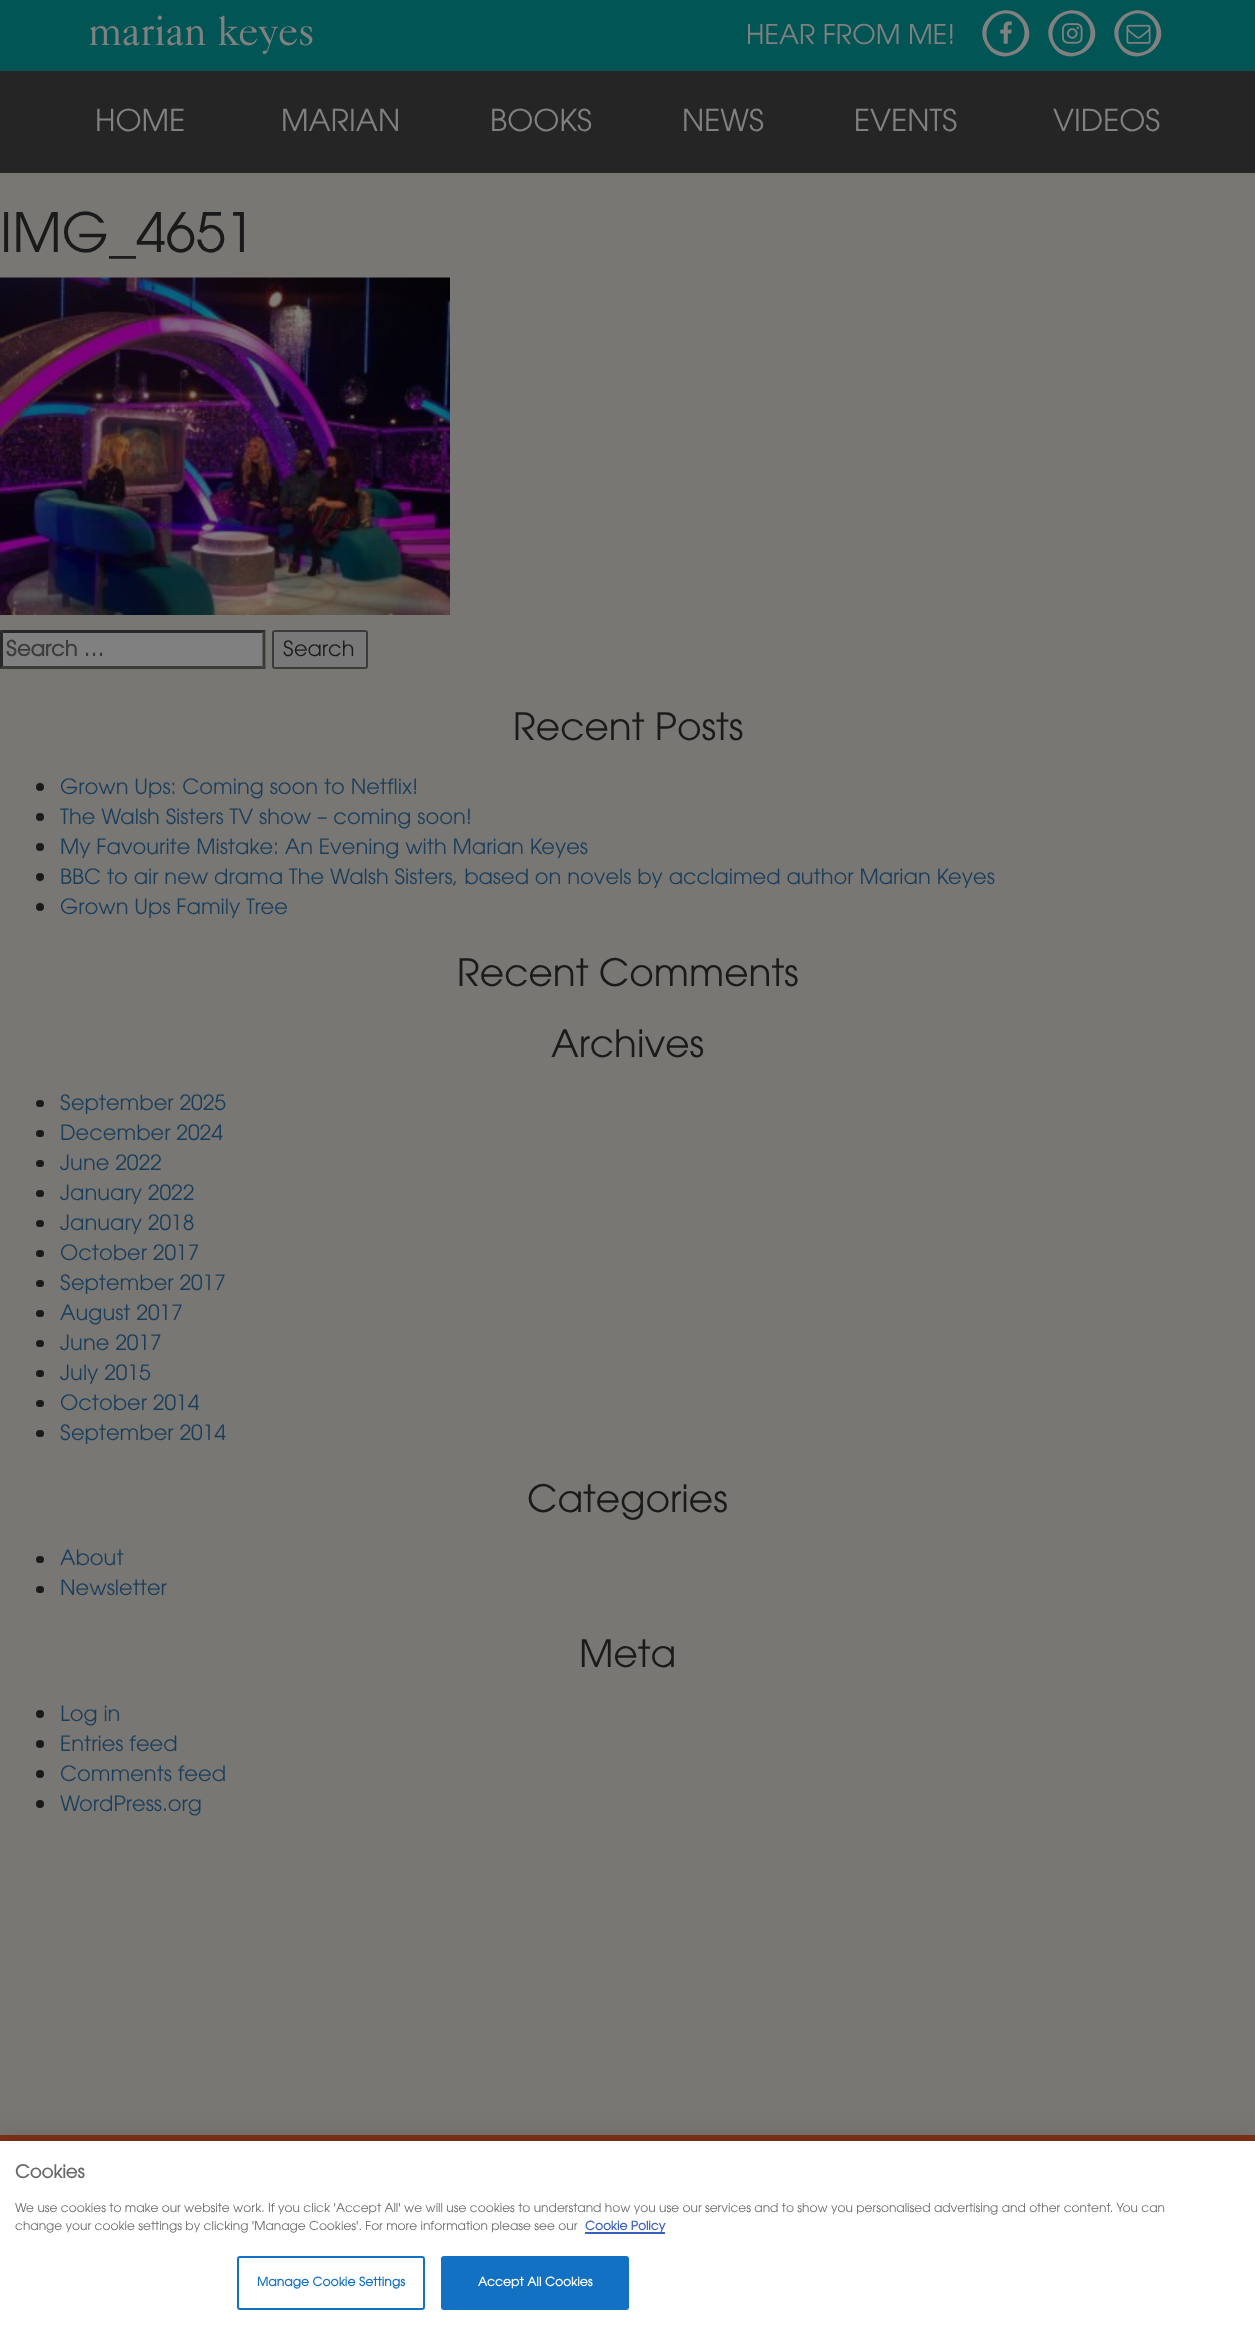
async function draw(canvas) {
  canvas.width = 1255;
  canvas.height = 2325;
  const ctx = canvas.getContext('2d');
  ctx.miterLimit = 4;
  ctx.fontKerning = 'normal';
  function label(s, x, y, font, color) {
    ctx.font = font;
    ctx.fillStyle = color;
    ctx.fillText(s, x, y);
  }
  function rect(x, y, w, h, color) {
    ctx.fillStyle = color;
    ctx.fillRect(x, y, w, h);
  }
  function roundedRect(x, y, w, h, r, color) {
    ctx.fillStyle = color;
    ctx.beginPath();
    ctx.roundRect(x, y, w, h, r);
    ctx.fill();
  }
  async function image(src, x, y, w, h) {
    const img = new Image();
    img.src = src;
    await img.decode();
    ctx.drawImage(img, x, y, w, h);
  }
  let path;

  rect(0, 0, 1255, 2325, '#797773');
  rect(0, 0, 1255, 71, '#015555');
  label('marian keyes', 88, 45, '42px "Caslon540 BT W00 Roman"', '#808080');
  label('HEAR FROM ME!', 746, 44, '27px "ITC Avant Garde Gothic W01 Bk"', '#808080');
  path = new Path2D('M1013 15C990 6 975 41 998 51C1021 61 1036 26 1013 15ZM1026 22C1041 48 1001 71 986 45C970 19 1010-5 1026 22Z');
  ctx.fill(path);
  await image('assets/img1.png', 1000, 21, 12, 23);
  path = new Path2D('M1079 15C1056 6 1041 41 1064 51C1087 61 1102 26 1079 15ZM1092 22C1107 48 1067 71 1052 45C1036 19 1076-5 1092 22Z');
  ctx.fill(path);
  await image('assets/img2.png', 1062, 23, 21, 21);
  path = new Path2D('M1145 15C1122 6 1107 41 1130 51C1153 61 1168 26 1145 15ZM1158 22C1173 48 1133 71 1118 45C1102 19 1142-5 1158 22Z');
  ctx.fill(path);
  await image('assets/img3.png', 1126, 24, 25, 20);
  rect(0, 71, 1255, 102, '#252525');
  label('HOME', 95, 131, '30px "ITC Avant Garde Gothic W01 Bk"', '#808080');
  label('MARIAN', 281, 131, '30px "ITC Avant Garde Gothic W01 Bk"', '#808080');
  label('BOOKS', 490, 131, '30px "ITC Avant Garde Gothic W01 Bk"', '#808080');
  label('NEWS', 682, 131, '30px "ITC Avant Garde Gothic W01 Bk"', '#808080');
  label('EVENTS', 854, 131, '30px "ITC Avant Garde Gothic W01 Bk"', '#808080');
  label('VIDEOS', 1053, 131, '30px "ITC Avant Garde Gothic W01 Bk"', '#808080');
  label('IMG_4651', 0, 252, '54px "ITC Avant Garde Gothic W01 Bk"', '#1a1a1a');
  await image('assets/img4.png', 0, 277, 450, 338);
  rect(0, 630, 266, 39, '#808080');
  ctx.fillStyle = '#282828';
  path = new Path2D('M0 630H266L262 633H3Z');
  ctx.fill(path);
  ctx.fillStyle = '#3b3b3b';
  path = new Path2D('M265.5 630V669L262.5 666V633Z');
  ctx.fill(path);
  path = new Path2D('M266 669H0L3 666H262Z');
  ctx.fill(path);
  ctx.fillStyle = '#282828';
  path = new Path2D('M0 669V630L3 633V666Z');
  ctx.fill(path);
  label('Search …', 6, 656, 'bold 21px "ITC Avant Garde Gothic W01 Bk"', '#3b3b3b');
  ctx.fillStyle = '#787878';
  ctx.beginPath();
  ctx.roundRect(273, 631, 94, 37, 2);
  ctx.fill();
  ctx.strokeStyle = '#3b3b3b';
  ctx.lineWidth = 2;
  ctx.stroke();
  label('Search', 283, 656, '21px "ITC Avant Garde Gothic W01 Bk"', '#1a1a1a');
  label('Recent Posts', 513, 740, '37.5px "ITC Avant Garde Gothic W01 Bk"', '#1a1a1a');
  ctx.beginPath();
  ctx.arc(40, 787, 4, 0, 2 * Math.PI);
  ctx.fill();
  label('Grown Ups: Coming soon to Netflix!', 60, 794, '21px "ITC Avant Garde Gothic W01 Bk"', '#1a3d5c');
  ctx.fillStyle = '#1a1a1a';
  ctx.beginPath();
  ctx.arc(40, 817, 4, 0, 2 * Math.PI);
  ctx.fill();
  label('The Walsh Sisters TV show – coming soon!', 60, 824, '21px "ITC Avant Garde Gothic W01 Bk"', '#1a3d5c');
  ctx.fillStyle = '#1a1a1a';
  ctx.beginPath();
  ctx.arc(40, 847, 4, 0, 2 * Math.PI);
  ctx.fill();
  label('My Favourite Mistake: An Evening with Marian Keyes', 60, 854, '21px "ITC Avant Garde Gothic W01 Bk"', '#1a3d5c');
  ctx.fillStyle = '#1a1a1a';
  ctx.beginPath();
  ctx.arc(40, 877, 4, 0, 2 * Math.PI);
  ctx.fill();
  label('BBC to air new drama The Walsh Sisters, based on novels by acclaimed author Marian Keyes', 60, 884, '21px "ITC Avant Garde Gothic W01 Bk"', '#1a3d5c');
  ctx.fillStyle = '#1a1a1a';
  ctx.beginPath();
  ctx.arc(40, 907, 4, 0, 2 * Math.PI);
  ctx.fill();
  label('Grown Ups Family Tree', 60, 914, '21px "ITC Avant Garde Gothic W01 Bk"', '#1a3d5c');
  label('Recent Comments', 457, 986, '37.5px "ITC Avant Garde Gothic W01 Bk"', '#1a1a1a');
  label('Archives', 551, 1057, '37.5px "ITC Avant Garde Gothic W01 Bk"', '#1a1a1a');
  roundedRect(36, 1100, 8, 7, 3.5, '#1a1a1a');
  label('September 2025', 60, 1110, '21px "ITC Avant Garde Gothic W01 Bk"', '#1a3d5c');
  roundedRect(36, 1130, 8, 7, 3.5, '#1a1a1a');
  label('December 2024', 60, 1140, '21px "ITC Avant Garde Gothic W01 Bk"', '#1a3d5c');
  roundedRect(36, 1160, 8, 7, 3.5, '#1a1a1a');
  label('June 2022', 60, 1170, '21px "ITC Avant Garde Gothic W01 Bk"', '#1a3d5c');
  roundedRect(36, 1190, 8, 7, 3.5, '#1a1a1a');
  label('January 2022', 60, 1200, '21px "ITC Avant Garde Gothic W01 Bk"', '#1a3d5c');
  roundedRect(36, 1220, 8, 7, 3.5, '#1a1a1a');
  label('January 2018', 60, 1230, '21px "ITC Avant Garde Gothic W01 Bk"', '#1a3d5c');
  roundedRect(36, 1250, 8, 7, 3.5, '#1a1a1a');
  label('October 2017', 60, 1260, '21px "ITC Avant Garde Gothic W01 Bk"', '#1a3d5c');
  roundedRect(36, 1280, 8, 7, 3.5, '#1a1a1a');
  label('September 2017', 60, 1290, '21px "ITC Avant Garde Gothic W01 Bk"', '#1a3d5c');
  roundedRect(36, 1310, 8, 7, 3.5, '#1a1a1a');
  label('August 2017', 60, 1320, '21px "ITC Avant Garde Gothic W01 Bk"', '#1a3d5c');
  roundedRect(36, 1340, 8, 7, 3.5, '#1a1a1a');
  label('June 2017', 60, 1350, '21px "ITC Avant Garde Gothic W01 Bk"', '#1a3d5c');
  roundedRect(36, 1370, 8, 7, 3.5, '#1a1a1a');
  label('July 2015', 60, 1380, '21px "ITC Avant Garde Gothic W01 Bk"', '#1a3d5c');
  roundedRect(36, 1400, 8, 7, 3.5, '#1a1a1a');
  label('October 2014', 60, 1410, '21px "ITC Avant Garde Gothic W01 Bk"', '#1a3d5c');
  roundedRect(36, 1430, 8, 7, 3.5, '#1a1a1a');
  label('September 2014', 60, 1440, '21px "ITC Avant Garde Gothic W01 Bk"', '#1a3d5c');
  label('Categories', 527, 1512, '37.5px "ITC Avant Garde Gothic W01 Bk"', '#1a1a1a');
  roundedRect(36, 1556, 8, 7, 3.5, '#1a1a1a');
  label('About', 60, 1565, '21px "ITC Avant Garde Gothic W01 Bk"', '#1a3d5c');
  roundedRect(36, 1586, 8, 7, 3.5, '#1a1a1a');
  label('Newsletter', 60, 1595, '21px "ITC Avant Garde Gothic W01 Bk"', '#1a3d5c');
  label('Meta', 579, 1667, '37.5px "ITC Avant Garde Gothic W01 Bk"', '#1a1a1a');
  ctx.beginPath();
  ctx.arc(40, 1714, 4, 0, 2 * Math.PI);
  ctx.fill();
  label('Log in', 60, 1721, '21px "ITC Avant Garde Gothic W01 Bk"', '#1a3d5c');
  ctx.fillStyle = '#1a1a1a';
  ctx.beginPath();
  ctx.arc(40, 1744, 4, 0, 2 * Math.PI);
  ctx.fill();
  label('Entries feed', 60, 1751, '21px "ITC Avant Garde Gothic W01 Bk"', '#1a3d5c');
  ctx.fillStyle = '#1a1a1a';
  ctx.beginPath();
  ctx.arc(40, 1774, 4, 0, 2 * Math.PI);
  ctx.fill();
  label('Comments feed', 60, 1781, '21px "ITC Avant Garde Gothic W01 Bk"', '#1a3d5c');
  ctx.fillStyle = '#1a1a1a';
  ctx.beginPath();
  ctx.arc(40, 1804, 4, 0, 2 * Math.PI);
  ctx.fill();
  label('WordPress.org', 60, 1811, '21px "ITC Avant Garde Gothic W01 Bk"', '#1a3d5c');
  rect(0, 2135, 1255, 6, '#803216');
  ctx.fillStyle = '#00000033';
  ctx.filter = 'blur(13.5px)';
  ctx.beginPath();
  ctx.rect(0, 2141, 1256, 184);
  ctx.fill();
  ctx.filter = 'none';
  rect(0, 2141, 1255, 184, '#fff');
  label('Cookies', 15, 2178, 'bold 18px "ITC Avant Garde Gothic W01 Bk"', '#696969');
  label('We use cookies to make our website work. If you click \'Accept All\' we will use cookies to understand how you use our services and to show you personalised advertising and other content. You can', 15, 2212, '12.2px "ITC Avant Garde Gothic W01 Bk"', '#696969');
  label('change your cookie settings by clicking \'Manage Cookies\'. For more information please see our', 15, 2230, '12.2px "ITC Avant Garde Gothic W01 Bk"', '#696969');
  rect(585, 2232, 80, 2, '#3860be');
  label('Cookie Policy', 585, 2230, 'bold 12.2px "ITC Avant Garde Gothic W01 Bk"', '#3860be');
  ctx.beginPath();
  ctx.roundRect(238, 2257, 186, 52, 2);
  ctx.strokeStyle = '#1371c3';
  ctx.stroke();
  ctx.letterSpacing = '0.1px';
  label('Manage Cookie Settings', 257, 2286, 'bold 12.2px "ITC Avant Garde Gothic W01 Bk"', '#1371c3');
  ctx.beginPath();
  ctx.roundRect(442, 2257, 186, 52, 2);
  ctx.fill();
  ctx.stroke();
  label('Accept All Cookies', 478, 2286, 'bold 12.2px "ITC Avant Garde Gothic W01 Bk"', '#fff');
}

draw(document.querySelector('canvas'));
